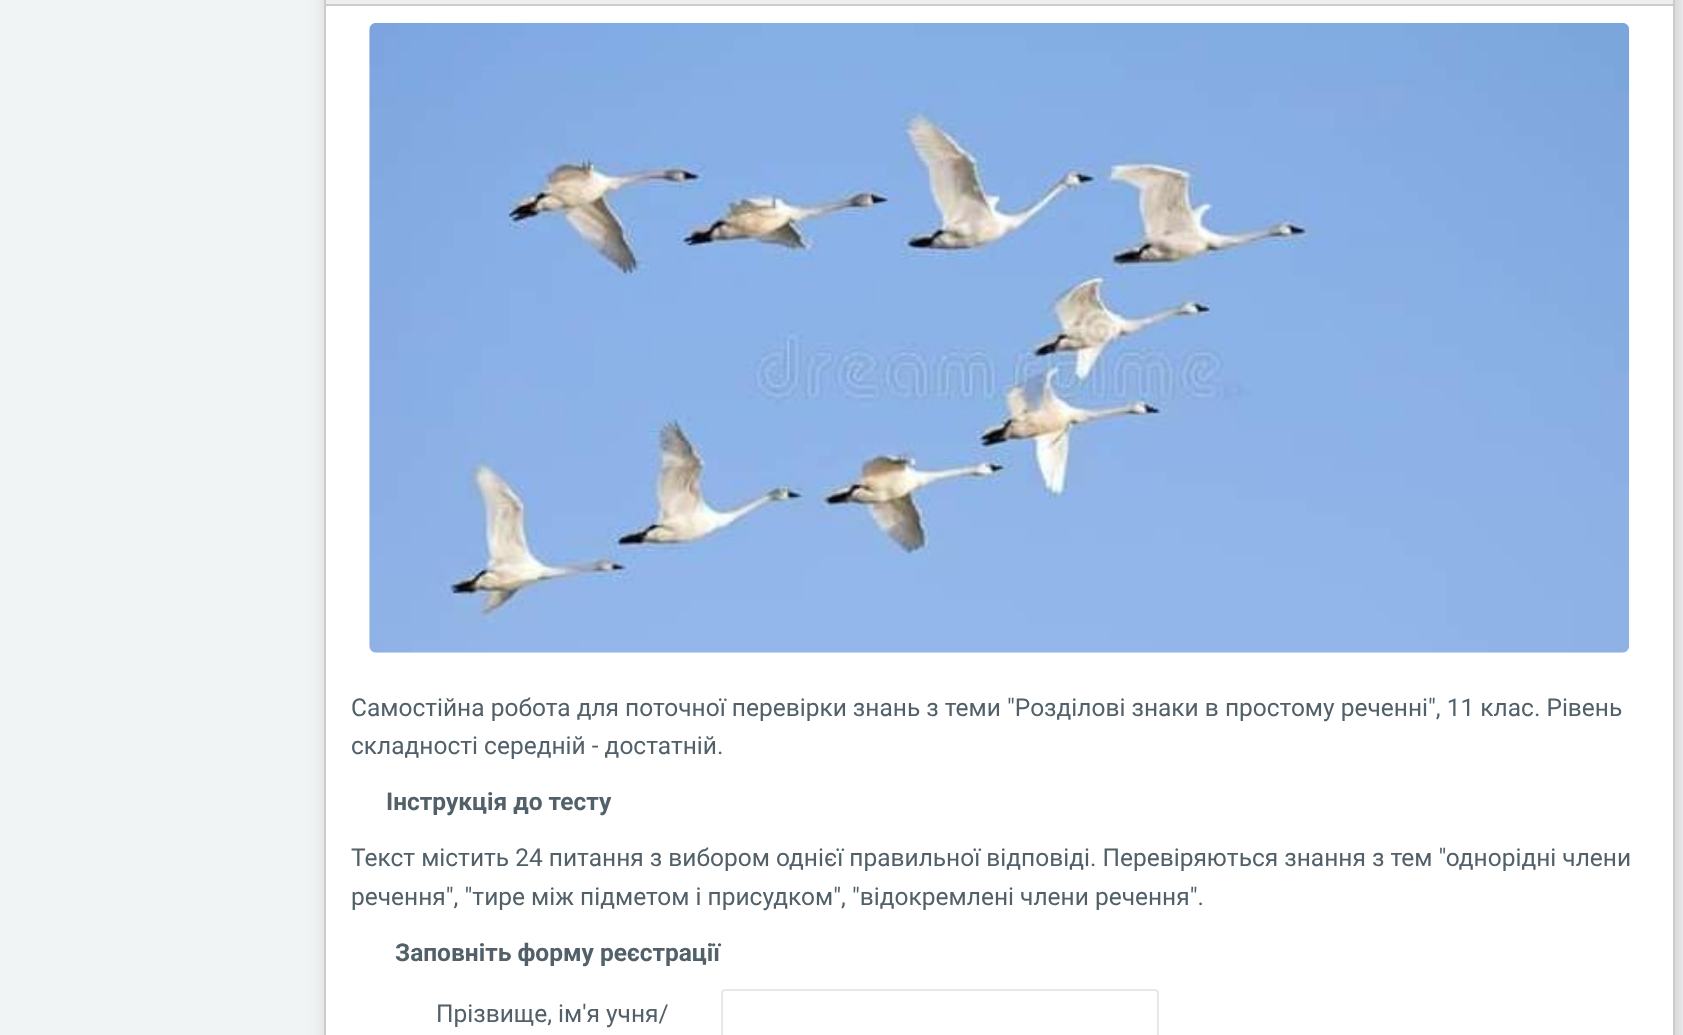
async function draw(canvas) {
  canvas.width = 1683;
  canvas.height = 1035;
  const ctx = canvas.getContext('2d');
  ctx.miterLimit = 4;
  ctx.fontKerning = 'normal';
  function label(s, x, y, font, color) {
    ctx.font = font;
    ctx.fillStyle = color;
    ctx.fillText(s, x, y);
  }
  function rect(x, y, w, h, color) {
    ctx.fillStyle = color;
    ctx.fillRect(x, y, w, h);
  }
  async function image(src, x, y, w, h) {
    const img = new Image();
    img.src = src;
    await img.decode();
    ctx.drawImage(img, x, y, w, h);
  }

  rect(0, 0, 1683, 1035, '#f1f4f5');
  ctx.fillStyle = '#ccc';
  ctx.filter = 'blur(9px)';
  ctx.beginPath();
  ctx.rect(327, -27, 1351, 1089);
  ctx.fill();
  ctx.filter = 'none';
  rect(326, 6, 1347, 1029, '#fff');
  ctx.strokeStyle = '#ccc';
  ctx.lineWidth = 2;
  ctx.strokeRect(325, -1, 1349, 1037);
  rect(326, 0, 1347, 4, '#eee');
  rect(326, 4, 1347, 2, '#ccc');
  await image('assets/img1.png', 369, 22, 1261, 631);
  label('Самостійна робота для поточної перевірки знань з теми "Розділові знаки в простому реченні", 11 клас. Рівень', 351, 716, '24.5px Roboto', '#526069');
  label('складності середній - достатній.', 351, 754, '24.5px Roboto', '#526069');
  label('Інструкція до тесту', 386, 810, 'bold 24.5px Roboto', '#526069');
  label('Текст містить 24 питання з вибором однієї правильної відповіді. Перевіряються знання з тем "однорідні члени', 351, 866, '24.5px Roboto', '#526069');
  label('речення", "тире між підметом і присудком", "відокремлені члени речення".', 351, 905, '24.5px Roboto', '#526069');
  label('Заповніть форму реєстрації', 395, 961, 'bold 24.5px Roboto', '#526069');
  label('Прізвище, ім\'я учня/', 436, 1022, '24.5px Roboto', '#526069');
  ctx.beginPath();
  ctx.roundRect(722, 990, 436, 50, 3);
  ctx.strokeStyle = '#e4eaec';
  ctx.stroke();
}

draw(document.querySelector('canvas'));
